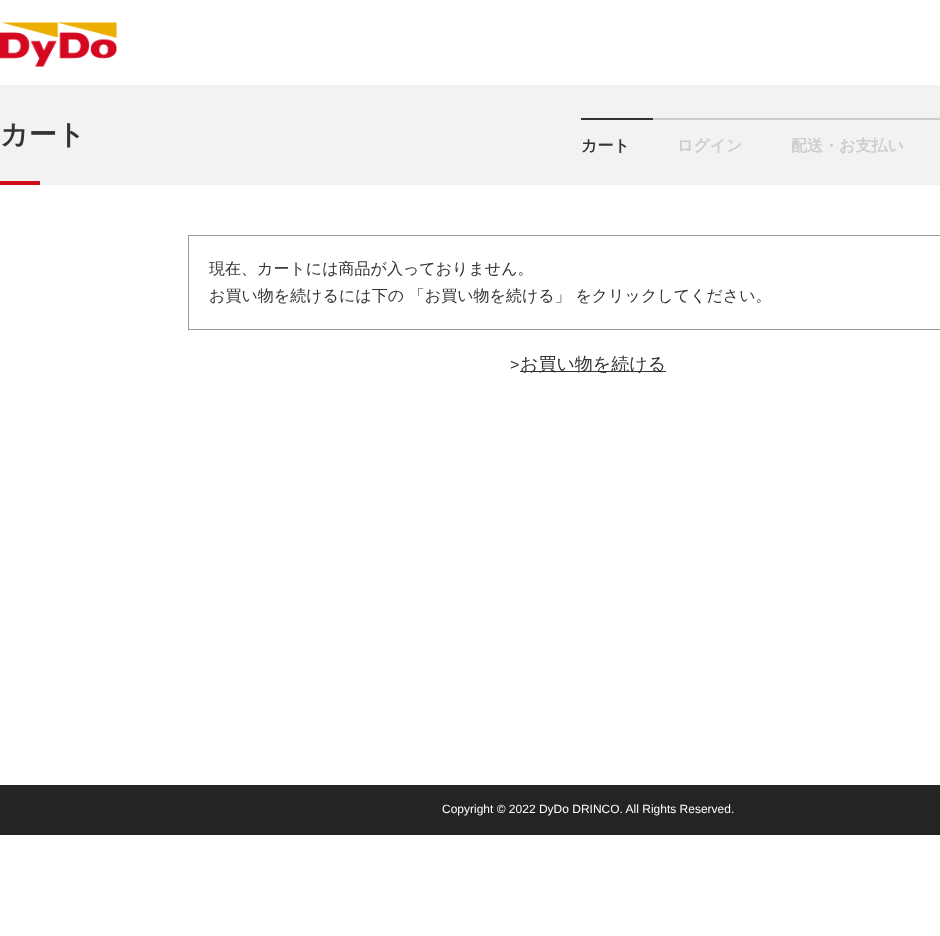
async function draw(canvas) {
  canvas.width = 940;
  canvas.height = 936;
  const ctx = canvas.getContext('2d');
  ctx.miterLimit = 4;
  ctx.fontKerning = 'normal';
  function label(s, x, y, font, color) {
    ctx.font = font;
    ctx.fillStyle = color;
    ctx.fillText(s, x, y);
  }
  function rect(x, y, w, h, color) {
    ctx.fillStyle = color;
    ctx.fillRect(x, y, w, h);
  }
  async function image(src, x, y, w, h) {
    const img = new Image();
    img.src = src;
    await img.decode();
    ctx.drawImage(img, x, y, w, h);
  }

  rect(0, 0, 940, 936, '#fff');
  await image('assets/img1.png', 0, 22, 117, 45);
  rect(0, 85, 940, 100, '#f2f2f2');
  label('カート', 0, 144, 'bold 28px WenQuanYi Zen Hei', '#333');
  rect(581, 118, 72, 2, '#333');
  label('カート', 581, 151, 'bold 16px WenQuanYi Zen Hei', '#333');
  rect(653, 118, 287, 2, '#ccc');
  label('ログイン', 677, 151, 'bold 16px WenQuanYi Zen Hei', '#ccc');
  label('配送・お支払い', 791, 151, 'bold 16px WenQuanYi Zen Hei', '#ccc');
  rect(0, 181, 40, 4, '#d0111b');
  ctx.strokeStyle = '#999';
  ctx.strokeRect(188.5, 235.5, 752, 94);
  label('現在、カートには商品が入っておりません。', 209, 274, '500 16px WenQuanYi Zen Hei', '#333');
  label('お買い物を続けるには下の 「お買い物を続ける」 をクリックしてください。', 209, 301, '500 16px WenQuanYi Zen Hei', '#333');
  label('>', 510, 370, '16px Liberation Sans', '#333');
  rect(520, 371, 146, 1, '#333');
  label('お買い物を続ける', 520, 370, '500 18px WenQuanYi Zen Hei', '#333');
  rect(0, 785, 940, 50, '#242424');
  label('Copyright © 2022 DyDo DRINCO. All Rights Reserved.', 442, 813, '12px Liberation Sans', '#fff');
}

draw(document.querySelector('canvas'));
